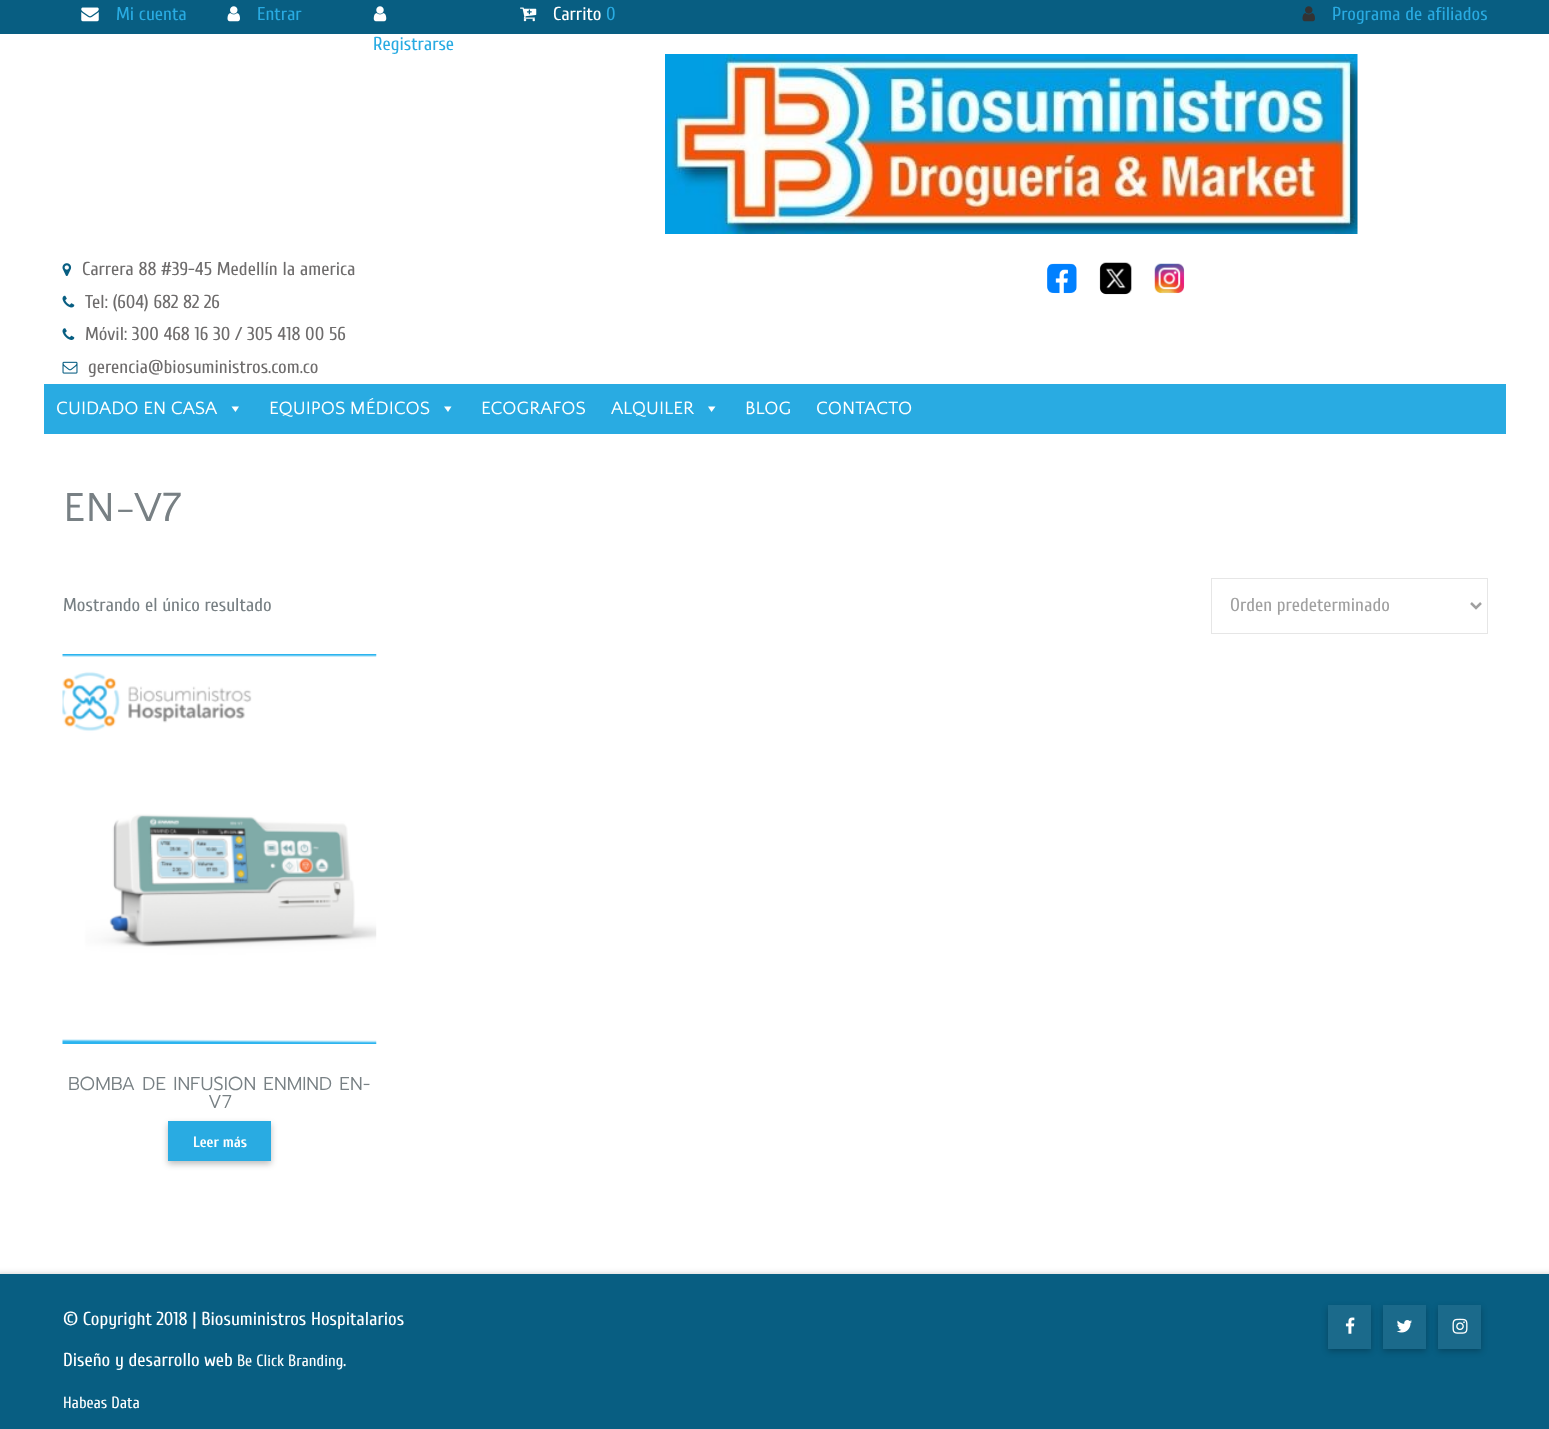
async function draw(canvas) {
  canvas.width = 1549;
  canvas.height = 1429;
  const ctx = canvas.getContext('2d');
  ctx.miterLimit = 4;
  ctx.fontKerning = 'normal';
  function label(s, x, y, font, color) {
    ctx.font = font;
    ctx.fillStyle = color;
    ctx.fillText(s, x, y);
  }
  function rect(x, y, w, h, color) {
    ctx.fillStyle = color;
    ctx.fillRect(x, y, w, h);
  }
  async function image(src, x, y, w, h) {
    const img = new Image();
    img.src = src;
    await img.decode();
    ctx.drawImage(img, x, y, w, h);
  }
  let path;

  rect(0, 0, 1549, 1429, '#fff');
  rect(0, 0, 1549, 34, '#085e82');
  await image('assets/img1.png', 81, 7, 18, 15);
  label('Mi cuenta', 116, 20, '18.75px Cuprum', '#29abe2');
  await image('assets/img2.png', 227, 6, 13, 16);
  label('Entrar', 257, 20, '18.75px Cuprum', '#29abe2');
  await image('assets/img3.png', 520, 7, 17, 15);
  label('Carrito', 553, 20, '18.75px Cuprum', '#fff');
  label('0', 606, 20, '18.75px Cuprum', '#29abe2');
  await image('assets/img4.png', 373, 6, 14, 16);
  label('Registrarse', 373, 50, '18.75px Cuprum', '#29abe2');
  await image('assets/img5.png', 1302, 6, 13, 16);
  label('Programa de afiliados', 1332, 20, '18.75px Cuprum', '#29abe2');
  await image('assets/img6.png', 665, 54, 693, 180);
  await image('assets/img7.png', 62, 263, 10, 13);
  label('Carrera 88 #39-45 Medellín la america', 82, 275, '18.75px Cuprum', '#6e6c6c');
  await image('assets/img8.png', 62, 295, 13, 13);
  label('Tel: (604) 682 82 26', 85, 308, '18.75px Cuprum', '#6e6c6c');
  await image('assets/img9.png', 62, 328, 13, 12);
  label('Móvil: 300 468 16 30 / 305 418 00 56', 85, 340, '18.75px Cuprum', '#6e6c6c');
  await image('assets/img10.png', 62, 361, 16, 13);
  label('gerencia@biosuministros.com.co', 88, 373, '18.75px Cuprum', '#6e6c6c');
  await image('assets/img11.png', 1047, 263, 30, 31);
  await image('assets/img12.png', 1099, 262, 33, 33);
  await image('assets/img13.png', 1154, 263, 31, 31);
  rect(44, 384, 1462, 50, '#29abe2');
  label('CUIDADO EN CASA', 56, 414, '18.75px Quattrocento Sans', '#fff');
  path = new Path2D('M239 406.5L235.5 412L231.5 406.5Z');
  ctx.fill(path);
  label('EQUIPOS MÉDICOS', 269, 414, '18.75px Quattrocento Sans', '#fff');
  path = new Path2D('M451.5 406.5L448 412L444 406.5Z');
  ctx.fill(path);
  label('ECOGRAFOS', 481, 414, '18.75px Quattrocento Sans', '#fff');
  label('ALQUILER', 611, 414, '18.75px Quattrocento Sans', '#fff');
  path = new Path2D('M715.5 406.5L711.5 412L708 406.5Z');
  ctx.fill(path);
  label('BLOG', 745, 414, '18.75px Quattrocento Sans', '#fff');
  label('CONTACTO', 816, 414, '18.75px Quattrocento Sans', '#fff');
  label('EN-V7', 63, 521, '42.5px Quattrocento Sans', '#788084');
  label('Mostrando el único resultado', 63, 611, '18.75px Cuprum', '#788084');
  ctx.strokeStyle = '#e6e6e6';
  ctx.strokeRect(1211.5, 578.5, 276, 55);
  path = new Path2D('M1471 603L1476 608L1481 603');
  ctx.strokeStyle = '#a0a0a0';
  ctx.lineWidth = 2.5;
  ctx.stroke(path);
  label('Orden predeterminado', 1230, 611, '18.75px Cuprum', '#a0a0a0');
  await image('assets/img14.png', 62, 654, 315, 390);
  label('BOMBA DE INFUSION ENMIND EN-', 68, 1090, '300 18.75px Prompt', '#788084');
  label('V7', 208, 1108, '300 18.75px Prompt', '#788084');
  ctx.fillStyle = '#00000042';
  ctx.filter = 'blur(3px)';
  ctx.beginPath();
  ctx.rect(168, 1124, 103, 40);
  ctx.fill();
  ctx.filter = 'none';
  rect(168, 1121, 103, 40, '#29abe2');
  label('Leer más', 193, 1147, 'bold 15px Cuprum', '#fff');
  ctx.fillStyle = '#00000033';
  ctx.filter = 'blur(3px)';
  ctx.beginPath();
  ctx.rect(-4, 1274, 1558, 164);
  ctx.fill();
  ctx.filter = 'none';
  rect(0, 1274, 1549, 155, '#085e82');
  label('© Copyright 2018 | Biosuministros Hospitalarios', 63, 1325, '18.75px Cuprum', '#fff');
  label('Diseño y desarrollo web', 63, 1366, '18.75px Cuprum', '#fff');
  label('Be Click Branding', 237, 1366, '16.25px Cuprum', '#fff');
  label('.', 343, 1366, '18.75px Cuprum', '#fff');
  label('Habeas Data', 63, 1408, '16.25px Cuprum', '#fff');
  ctx.save();
  path = new Path2D('M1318 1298H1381V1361H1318ZM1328 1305H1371V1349H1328Z');
  ctx.clip(path, 'evenodd');
  ctx.fillStyle = '#00000042';
  ctx.filter = 'blur(3px)';
  ctx.beginPath();
  ctx.rect(1328, 1308, 43, 43);
  ctx.fill();
  ctx.filter = 'none';
  ctx.restore();
  rect(1328, 1305, 43, 44, '#ffffff14');
  await image('assets/img15.png', 1345, 1317, 10, 17);
  ctx.save();
  path = new Path2D('M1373 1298H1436V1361H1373ZM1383 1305H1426V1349H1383Z');
  ctx.clip(path, 'evenodd');
  ctx.fillStyle = '#00000042';
  ctx.filter = 'blur(3px)';
  ctx.beginPath();
  ctx.rect(1383, 1308, 43, 43);
  ctx.fill();
  ctx.filter = 'none';
  ctx.restore();
  rect(1383, 1305, 43, 44, '#ffffff14');
  await image('assets/img16.png', 1396, 1320, 16, 13);
  ctx.save();
  path = new Path2D('M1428 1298H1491V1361H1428ZM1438 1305H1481V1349H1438Z');
  ctx.clip(path, 'evenodd');
  ctx.fillStyle = '#00000042';
  ctx.filter = 'blur(3px)';
  ctx.beginPath();
  ctx.rect(1438, 1308, 43, 43);
  ctx.fill();
  ctx.filter = 'none';
  ctx.restore();
  rect(1438, 1305, 43, 44, '#ffffff14');
  await image('assets/img17.png', 1452, 1318, 16, 16);
}

draw(document.querySelector('canvas'));
